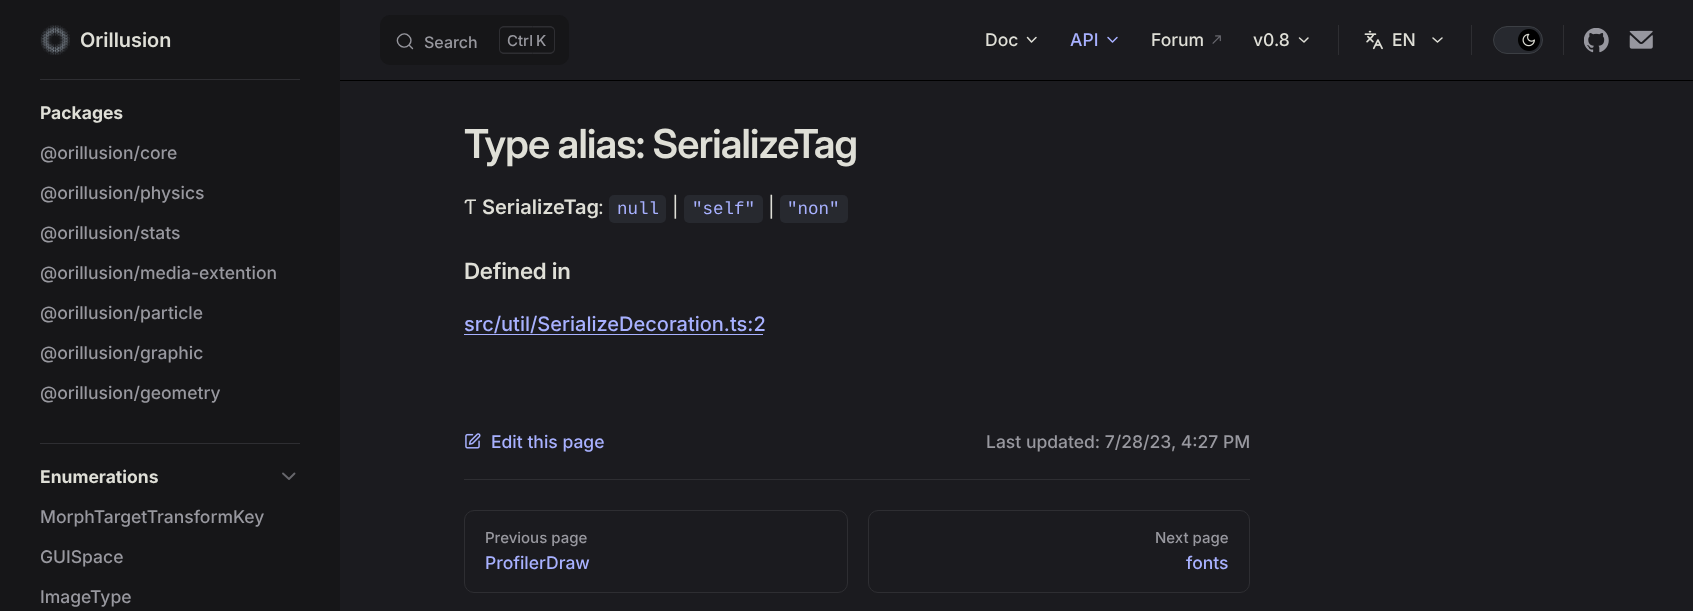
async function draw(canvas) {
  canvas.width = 1693;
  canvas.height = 611;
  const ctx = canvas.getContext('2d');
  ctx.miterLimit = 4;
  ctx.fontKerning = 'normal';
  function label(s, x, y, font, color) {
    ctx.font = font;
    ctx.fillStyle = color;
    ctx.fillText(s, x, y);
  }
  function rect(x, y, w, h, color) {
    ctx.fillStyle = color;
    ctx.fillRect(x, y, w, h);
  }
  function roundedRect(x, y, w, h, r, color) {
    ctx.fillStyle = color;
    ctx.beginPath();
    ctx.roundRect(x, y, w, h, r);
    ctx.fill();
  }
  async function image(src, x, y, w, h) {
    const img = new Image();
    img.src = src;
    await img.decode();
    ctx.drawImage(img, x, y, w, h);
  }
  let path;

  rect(0, 0, 1693, 611, '#1b1b1f');
  rect(0, 0, 340, 611, '#161618');
  rect(40, 79, 260, 1, '#2e2e32');
  await image('assets/img1.png', 40, 25, 30, 30);
  label('Orillusion', 80, 47, '600 20px "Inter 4"', '#dfdfd7');
  roundedRect(380, 15, 189, 50, 10, '#161618');
  path = new Path2D('M409 45L412.5 48.5L409 45C402.5 51.5 393 41.5 399.5 36C406 30 415 39 409 45Z');
  ctx.strokeStyle = '#96969d';
  ctx.lineWidth = 1.4;
  ctx.lineCap = 'round';
  ctx.lineJoin = 'round';
  ctx.stroke(path);
  label('Search', 424, 48, '500 16px Inter', '#98989f');
  ctx.fillStyle = '#2e2e32';
  path = new Path2D('M504 26H532.5V54H504C501 54 499 51.5 499 49V31C499 28.5 501 26 504 26ZM504 27.5H532.5V52.5H504C501.5 52.5 500 51 500 49V31C500 29 501.5 27.5 504 27.5Z');
  ctx.fill(path, 'evenodd');
  label('Ctrl', 507, 46, '500 15px Inter', '#98989f');
  ctx.fillStyle = '#2e2e32';
  path = new Path2D('M532.5 26H550C553 26 555 28.5 555 31V49C555 51.5 553 54 550 54H532.5ZM532.5 27.5H550C552 27.5 554 29 554 31V49C554 51 552 52.5 550 52.5H532.5Z');
  ctx.fill(path, 'evenodd');
  label('K', 536, 46, '500 15px Inter', '#98989f');
  label('Doc', 985, 46, '500 17.5px Inter', '#dfdfd7');
  path = new Path2D('M1027.5 37.5L1031.5 42L1036 37.5');
  ctx.strokeStyle = '#dfdfd7';
  ctx.lineWidth = 1.5;
  ctx.stroke(path);
  label('API', 1070, 46, '500 17.5px Inter', '#a8b1ff');
  path = new Path2D('M1108 37.5L1112.5 42L1117 37.5');
  ctx.strokeStyle = '#a8b1ff';
  ctx.stroke(path);
  label('Forum', 1151, 46, '500 17.5px Inter', '#dfdfd7');
  await image('assets/img2.png', 1212, 35, 9, 9);
  label('v0.8', 1253, 46, '500 17.5px Inter', '#dfdfd7');
  path = new Path2D('M1299.5 38L1304 42L1308 38');
  ctx.strokeStyle = '#dfdfd7';
  ctx.stroke(path);
  rect(1338, 25, 1, 30, '#2e2e32');
  await image('assets/img3.png', 1364, 30, 19, 20);
  label('EN', 1392, 46, '500 17.5px Inter', '#dfdfd7');
  path = new Path2D('M1433 38L1437.5 42L1442 38');
  ctx.stroke(path);
  rect(1471, 25, 1, 30, '#2e2e32');
  ctx.fillStyle = '#27292f';
  ctx.beginPath();
  ctx.roundRect(1493.5, 26.5, 49, 27, 13.5);
  ctx.fill();
  ctx.strokeStyle = '#3c3f44';
  ctx.lineWidth = 1;
  ctx.lineJoin = 'miter';
  ctx.stroke();
  ctx.fillStyle = '#000';
  ctx.beginPath();
  ctx.arc(1529, 40, 11, 0, 2 * Math.PI);
  ctx.fill();
  await image('assets/img4.png', 1522, 33, 13, 14);
  rect(1563, 25, 1, 30, '#2e2e32');
  await image('assets/img5.png', 1584, 28, 25, 25);
  await image('assets/img6.png', 1629, 30, 24, 19);
  rect(340, 80, 1353, 1, '#000');
  label('Packages', 40, 119, 'bold 17.5px Inter', '#dfdfd7');
  label('@orillusion/core', 40, 159, '500 17.5px Inter', '#98989f');
  label('@orillusion/physics', 40, 199, '500 17.5px Inter', '#98989f');
  label('@orillusion/stats', 40, 239, '500 17.5px Inter', '#98989f');
  label('@orillusion/media-extention', 40, 279, '500 17.5px Inter', '#98989f');
  label('@orillusion/particle', 40, 319, '500 17.5px Inter', '#98989f');
  label('@orillusion/graphic', 40, 359, '500 17.5px Inter', '#98989f');
  label('@orillusion/geometry', 40, 399, '500 17.5px Inter', '#98989f');
  rect(40, 443, 260, 1, '#2e2e32');
  label('Enumerations', 40, 483, 'bold 17.5px Inter', '#dfdfd7');
  path = new Path2D('M283 473.5L289 479L294.5 473.5');
  ctx.strokeStyle = '#67676c';
  ctx.lineWidth = 1.9;
  ctx.lineJoin = 'round';
  ctx.stroke(path);
  label('MorphTargetTransformKey', 40, 523, '500 17.5px Inter', '#98989f');
  label('GUISpace', 40, 563, '500 17.5px Inter', '#98989f');
  label('ImageType', 40, 603, '500 17.5px Inter', '#98989f');
  ctx.letterSpacing = '-0.8px';
  label('Type alias: SerializeTag', 464, 158, '600 40px "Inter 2"', '#dfdfd7');
  ctx.letterSpacing = '0px';
  label('Ƭ', 464, 214, '20px Inter', '#dfdfd7');
  label('SerializeTag', 482, 214, '600 20px Inter', '#dfdfd7');
  label(':', 598, 214, '20px Inter', '#dfdfd7');
  roundedRect(609, 195, 57, 28, 5, '#27292f');
  label('null', 617, 214, '17.5px Liberation Mono', '#a8b1ff');
  label('|', 672, 214, '20px Inter', '#dfdfd7');
  roundedRect(684, 195, 79, 28, 5, '#27292f');
  label('"self"', 692, 214, '17.5px Liberation Mono', '#a8b1ff');
  label('|', 768, 214, '20px Inter', '#dfdfd7');
  roundedRect(780, 195, 68, 28, 5, '#27292f');
  label('"non"', 787, 214, '17.5px Liberation Mono', '#a8b1ff');
  ctx.letterSpacing = '-0.25px';
  label('Defined in', 464, 279, '600 22.5px "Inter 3"', '#dfdfd7');
  ctx.letterSpacing = '0px';
  label('src/util/SerializeDecoration.ts:2', 464, 331, '500 20px Inter', '#a8b1ff');
  rect(464, 334, 299, 1, '#a8b1ff');
  await image('assets/img7.png', 465, 433, 16, 16);
  label('Edit this page', 491, 448, '500 17.5px Inter', '#a8b1ff');
  label('Last updated: 7/28/23, 4:27 PM', 986, 448, '500 17.5px Inter', '#98989f');
  rect(464, 479, 786, 1, '#2e2e32');
  ctx.beginPath();
  ctx.roundRect(464.5, 510.5, 383, 82, 9.5);
  ctx.strokeStyle = '#2e2e32';
  ctx.lineWidth = 1;
  ctx.lineJoin = 'miter';
  ctx.stroke();
  label('Previous page', 485, 543, '500 15px Inter', '#98989f');
  label('ProfilerDraw', 485, 569, '500 17.5px Inter', '#a8b1ff');
  ctx.beginPath();
  ctx.roundRect(868.5, 510.5, 381, 82, 9.5);
  ctx.stroke();
  label('Next page', 1155, 543, '500 15px Inter', '#98989f');
  label('fonts', 1186, 569, '500 17.5px Inter', '#a8b1ff');
}

draw(document.querySelector('canvas'));
